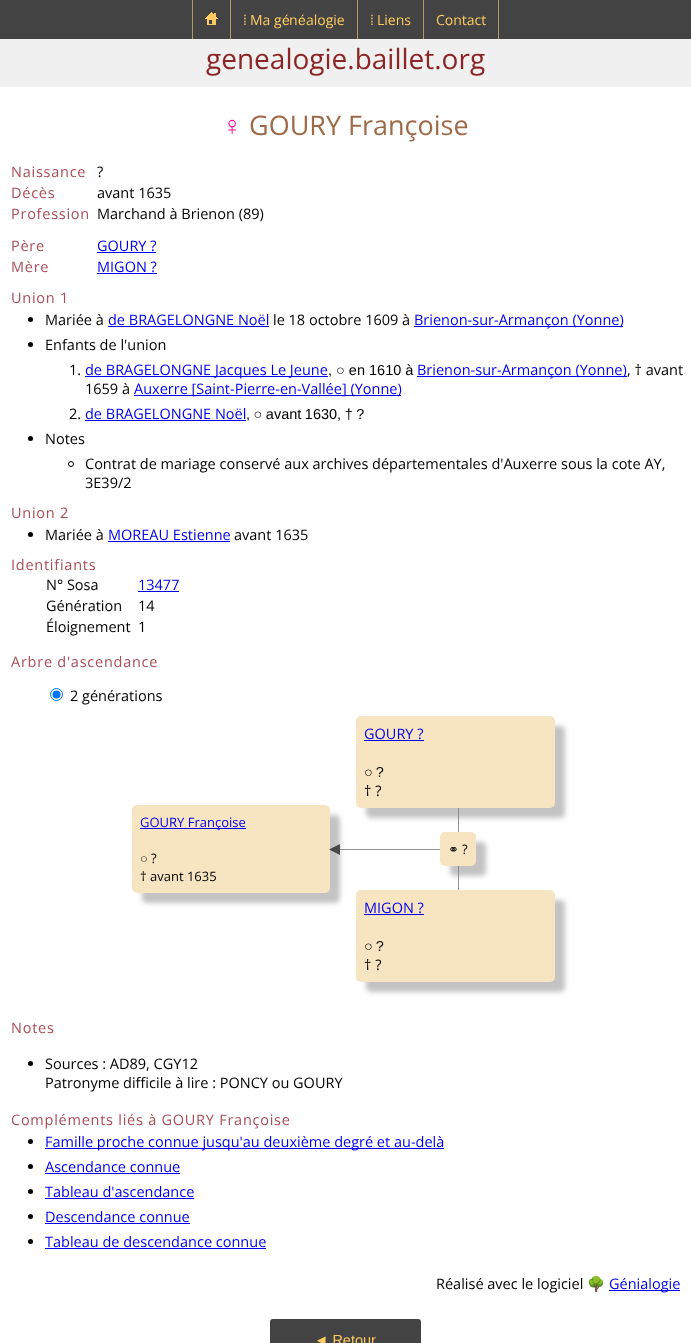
async function draw(canvas) {
  canvas.width = 691;
  canvas.height = 1343;
  const ctx = canvas.getContext('2d');
  ctx.miterLimit = 4;
  ctx.fontKerning = 'normal';
  function label(s, x, y, font, color) {
    ctx.font = font;
    ctx.fillStyle = color;
    ctx.fillText(s, x, y);
  }
  function rect(x, y, w, h, color) {
    ctx.fillStyle = color;
    ctx.fillRect(x, y, w, h);
  }
  function roundedRect(x, y, w, h, r, color) {
    ctx.fillStyle = color;
    ctx.beginPath();
    ctx.roundRect(x, y, w, h, r);
    ctx.fill();
  }
  async function image(src, x, y, w, h) {
    const img = new Image();
    img.src = src;
    await img.decode();
    ctx.drawImage(img, x, y, w, h);
  }
  let path;

  rect(0, 0, 691, 1343, '#434343');
  rect(192, 0, 1, 39, '#b29863');
  await image('assets/img1.png', 205, 12, 13, 13);
  rect(230, 0, 1, 39, '#b29863');
  label('⁞', 243, 25, '14px Liberation Sans', '#ffcb60');
  label('Ma g', 250, 25, '14px Open Sans', '#ffcb60');
  label('é', 282, 25, '14px Liberation Sans', '#ffcb60');
  label('n', 289, 25, '14px Open Sans', '#ffcb60');
  label('é', 298, 25, '14px Liberation Sans', '#ffcb60');
  label('alogie', 306, 25, '14px Open Sans', '#ffcb60');
  rect(357, 0, 1, 39, '#b29863');
  label('⁞', 370, 25, '14px Liberation Sans', '#ffcb60');
  label('Liens', 377, 25, '14px Open Sans', '#ffcb60');
  rect(498, 0, 1, 39, '#b29863');
  rect(423, 0, 1, 39, '#b29863');
  label('Contact', 436, 25, '14px Open Sans', '#ffcb60');
  rect(0, 39, 691, 48, '#f0f0f0');
  label('genealogie.baillet.org', 206, 69, '28px Open Sans', '#8c2525');
  rect(0, 87, 691, 1256, '#fff');
  label('♀', 222, 135, '27px Liberation Sans', '#ff1493');
  label('GOURY Françoise', 249, 135, '27px Open Sans', '#9f6a47');
  ctx.letterSpacing = '0.75px';
  label('Naissance', 11, 177, '14.5px Open Sans', '#aa4d57');
  ctx.letterSpacing = '0px';
  label('?', 97, 177, '14.5px Open Sans', '#000');
  ctx.letterSpacing = '0.75px';
  label('Décès', 11, 198, '14.5px Open Sans', '#aa4d57');
  ctx.letterSpacing = '0px';
  label('avant 1635', 97, 198, '14.5px Open Sans', '#000');
  ctx.letterSpacing = '0.75px';
  label('Profession', 11, 219, '14.5px Open Sans', '#aa4d57');
  ctx.letterSpacing = '0px';
  label('Marchand à Brienon (89)', 97, 219, '14.5px Open Sans', '#000');
  ctx.letterSpacing = '0.75px';
  label('Père', 11, 251, '14.5px Open Sans', '#aa4d57');
  ctx.letterSpacing = '0px';
  label('GOURY ?', 97, 251, '14.5px Open Sans', '#00e');
  rect(97, 252, 59, 1, '#00e');
  ctx.letterSpacing = '0.75px';
  label('Mère', 11, 272, '14.5px Open Sans', '#aa4d57');
  ctx.letterSpacing = '0px';
  label('MIGON ?', 97, 272, '14.5px Open Sans', '#00e');
  rect(97, 273, 60, 1, '#00e');
  ctx.letterSpacing = '0.75px';
  label('Union 1', 11, 303, '14.5px Open Sans', '#aa4d57');
  ctx.fillStyle = '#000';
  ctx.beginPath();
  ctx.arc(30.5, 319.5, 2.5, 0, 2 * Math.PI);
  ctx.fill();
  ctx.letterSpacing = '0px';
  label('Mariée à', 45, 325, '14.5px Open Sans', '#000');
  label('de BRAGELONGNE Noël', 108, 325, '14.5px Open Sans', '#00e');
  rect(108, 326, 161, 1, '#00e');
  label('le 18 octobre 1609 à', 273, 325, '14.5px Open Sans', '#000');
  rect(414, 326, 209, 1, '#00e');
  label('Brienon-sur-Armançon (Yonne)', 414, 325, '14.5px Open Sans', '#00e');
  ctx.fillStyle = '#000';
  ctx.beginPath();
  ctx.arc(30.5, 344.5, 2.5, 0, 2 * Math.PI);
  ctx.fill();
  label('Enfants de l\'union', 45, 350, '14.5px Open Sans', '#000');
  label('1.', 69, 375, '14.5px Open Sans', '#000');
  rect(85, 376, 243, 1, '#00e');
  label('de BRAGELONGNE Jacques Le Jeune', 85, 375, '14.5px Open Sans', '#00e');
  label(', ○ en 1610 à', 328, 375, '14.5px Liberation Sans', '#000');
  rect(417, 376, 210, 1, '#00e');
  label('Brienon-sur-Armançon (Yonne)', 417, 375, '14.5px Open Sans', '#00e');
  label(', † avant', 627, 375, '14.5px Open Sans', '#000');
  label('1659 à', 85, 394, '14.5px Open Sans', '#000');
  rect(134, 395, 267, 1, '#00e');
  label('Auxerre [Saint-Pierre-en-Vallée] (Yonne)', 134, 394, '14.5px Open Sans', '#00e');
  label('2.', 69, 419, '14.5px Open Sans', '#000');
  label('de BRAGELONGNE Noël', 85, 419, '14.5px Open Sans', '#00e');
  rect(85, 420, 161, 1, '#00e');
  ctx.wordSpacing = '-0.5px';
  label(', ○ avant 1630, † ?', 246, 419, '14.5px Liberation Sans', '#000');
  ctx.beginPath();
  ctx.arc(30.5, 438.5, 2.5, 0, 2 * Math.PI);
  ctx.fill();
  ctx.wordSpacing = '0px';
  label('Notes', 45, 444, '14.5px Open Sans', '#000');
  ctx.beginPath();
  ctx.arc(71, 464, 2.5, 0, 2 * Math.PI);
  ctx.strokeStyle = '#000';
  ctx.stroke();
  label('Contrat de mariage conservé aux archives départementales d\'Auxerre sous la cote AY,', 85, 469, '14.5px Open Sans', '#000');
  label('3E39/2', 85, 488, '14.5px Open Sans', '#000');
  ctx.letterSpacing = '0.75px';
  label('Union 2', 11, 518, '14.5px Open Sans', '#aa4d57');
  ctx.fillStyle = '#000';
  ctx.beginPath();
  ctx.arc(30.5, 534.5, 2.5, 0, 2 * Math.PI);
  ctx.fill();
  ctx.letterSpacing = '0px';
  label('Mariée à', 45, 540, '14.5px Open Sans', '#000');
  label('MOREAU Estienne', 108, 540, '14.5px Open Sans', '#00e');
  rect(108, 541, 122, 1, '#00e');
  label('avant 1635', 234, 540, '14.5px Open Sans', '#000');
  ctx.letterSpacing = '0.75px';
  label('Identifiants', 11, 570, '14.5px Open Sans', '#aa4d57');
  ctx.letterSpacing = '0px';
  label('N° Sosa', 46, 590, '14.5px Open Sans', '#000');
  label('13477', 138, 590, '14.5px Open Sans', '#00e');
  rect(138, 591, 41, 1, '#00e');
  label('Génération', 46, 611, '14.5px Open Sans', '#000');
  label('14', 138, 611, '14.5px Open Sans', '#000');
  label('Éloignement', 46, 632, '14.5px Open Sans', '#000');
  label('1', 138, 632, '14.5px Open Sans', '#000');
  ctx.letterSpacing = '0.75px';
  label('Arbre d\'ascendance', 11, 667, '14.5px Open Sans', '#aa4d57');
  ctx.beginPath();
  ctx.arc(56.5, 694.5, 6, 0, 2 * Math.PI);
  ctx.strokeStyle = '#0075ff';
  ctx.stroke();
  ctx.fillStyle = '#0075ff';
  ctx.beginPath();
  ctx.arc(56.5, 694.5, 4, 0, 2 * Math.PI);
  ctx.fill();
  ctx.letterSpacing = '0px';
  label('2 générations', 70, 701, '14.5px Open Sans', '#000');
  ctx.fillStyle = '#929292';
  path = new Path2D('M233 849H459L458 850H233Z');
  ctx.fill(path);
  ctx.fillStyle = '#88888880';
  ctx.filter = 'blur(2.5px)';
  ctx.beginPath();
  ctx.roundRect(142, 815, 198, 88, 5);
  ctx.fill();
  ctx.filter = 'none';
  roundedRect(132, 805, 198, 88, 5, '#f7e5c2');
  rect(140, 828, 106, 1, '#00e');
  label('GOURY Françoise', 140, 827, '13px Open Sans', '#00e');
  label('○', 140, 863, '13px Liberation Sans', '#000');
  label('?', 151, 863, '13px Open Sans', '#000');
  label('† avant 1635', 140, 881, '13px Open Sans', '#000');
  rect(458, 808, 1, 24, '#929292');
  ctx.fillStyle = '#88888880';
  ctx.filter = 'blur(2.5px)';
  ctx.beginPath();
  ctx.roundRect(366, 726, 199, 92, 5);
  ctx.fill();
  ctx.filter = 'none';
  roundedRect(356, 716, 199, 92, 5, '#f7e5c2');
  label('GOURY ?', 364, 739, '14.5px Open Sans', '#00e');
  rect(364, 740, 60, 1, '#00e');
  ctx.wordSpacing = '-1px';
  label('○ ?', 364, 777, '14.5px Liberation Sans', '#000');
  ctx.wordSpacing = '0px';
  label('† ?', 364, 796, '14.5px Open Sans', '#000');
  ctx.fillStyle = '#24242480';
  path = new Path2D('M459 849V927H458V850Z');
  ctx.fill(path);
  ctx.fillStyle = '#88888880';
  ctx.filter = 'blur(2.5px)';
  ctx.beginPath();
  ctx.roundRect(450, 842, 36, 34, 5);
  ctx.fill();
  ctx.filter = 'none';
  roundedRect(440, 832, 36, 34, 5, '#f7e5c2');
  label('⚭', 448, 854, '13px DejaVu Sans', '#000');
  label('?', 462, 854, '13px Open Sans', '#000');
  ctx.fillStyle = '#484848';
  path = new Path2D('M329 849.5L340 844V855Z');
  ctx.fill(path);
  ctx.fillStyle = '#88888880';
  ctx.filter = 'blur(2.5px)';
  ctx.beginPath();
  ctx.roundRect(366, 900, 199, 92, 5);
  ctx.fill();
  ctx.filter = 'none';
  roundedRect(356, 890, 199, 92, 5, '#f7e5c2');
  label('MIGON ?', 364, 913, '14.5px Open Sans', '#00e');
  rect(364, 914, 60, 1, '#00e');
  ctx.wordSpacing = '-1px';
  label('○ ?', 364, 951, '14.5px Liberation Sans', '#000');
  ctx.wordSpacing = '0px';
  label('† ?', 364, 970, '14.5px Open Sans', '#000');
  ctx.letterSpacing = '0.75px';
  label('Notes', 11, 1033, '14.5px Open Sans', '#aa4d57');
  ctx.fillStyle = '#000';
  ctx.beginPath();
  ctx.arc(30.5, 1063.5, 2.5, 0, 2 * Math.PI);
  ctx.fill();
  ctx.letterSpacing = '0px';
  label('Sources : AD89, CGY12', 45, 1069, '14.5px Open Sans', '#000');
  label('Patronyme difficile à lire : PONCY ou GOURY', 45, 1088, '14.5px Open Sans', '#000');
  ctx.letterSpacing = '0.75px';
  label('Compléments liés à GOURY Françoise', 11, 1125, '14.5px Open Sans', '#aa4d57');
  ctx.fillStyle = '#000';
  ctx.beginPath();
  ctx.arc(30.5, 1141.5, 2.5, 0, 2 * Math.PI);
  ctx.fill();
  rect(45, 1148, 399, 1, '#00e');
  ctx.letterSpacing = '0px';
  label('Famille proche connue jusqu\'au deuxième degré et au-delà', 45, 1147, '14.5px Open Sans', '#00e');
  ctx.fillStyle = '#000';
  ctx.beginPath();
  ctx.arc(30.5, 1166.5, 2.5, 0, 2 * Math.PI);
  ctx.fill();
  label('Ascendance connue', 45, 1172, '14.5px Open Sans', '#00e');
  rect(45, 1173, 135, 1, '#00e');
  ctx.fillStyle = '#000';
  ctx.beginPath();
  ctx.arc(30.5, 1191.5, 2.5, 0, 2 * Math.PI);
  ctx.fill();
  label('Tableau d\'ascendance', 45, 1197, '14.5px Open Sans', '#00e');
  rect(45, 1198, 149, 1, '#00e');
  ctx.fillStyle = '#000';
  ctx.beginPath();
  ctx.arc(30.5, 1216.5, 2.5, 0, 2 * Math.PI);
  ctx.fill();
  label('Descendance connue', 45, 1222, '14.5px Open Sans', '#00e');
  rect(45, 1223, 145, 1, '#00e');
  ctx.fillStyle = '#000';
  ctx.beginPath();
  ctx.arc(30.5, 1241.5, 2.5, 0, 2 * Math.PI);
  ctx.fill();
  label('Tableau de descendance connue', 45, 1247, '14.5px Open Sans', '#00e');
  rect(45, 1248, 221, 1, '#00e');
  label('Réalisé avec le logiciel', 436, 1289, '14.5px Open Sans', '#000');
  label('🌳', 587, 1289, '14.5px Noto Color Emoji', '#000');
  rect(609, 1290, 71, 1, '#00e');
  label('Génialogie', 609, 1289, '14.5px Open Sans', '#00e');
  roundedRect(270, 1319, 151, 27, 3, '#434343');
  label('◄ Retour', 314, 1345, '14.5px Liberation Sans', '#ffcb60');
}

draw(document.querySelector('canvas'));
